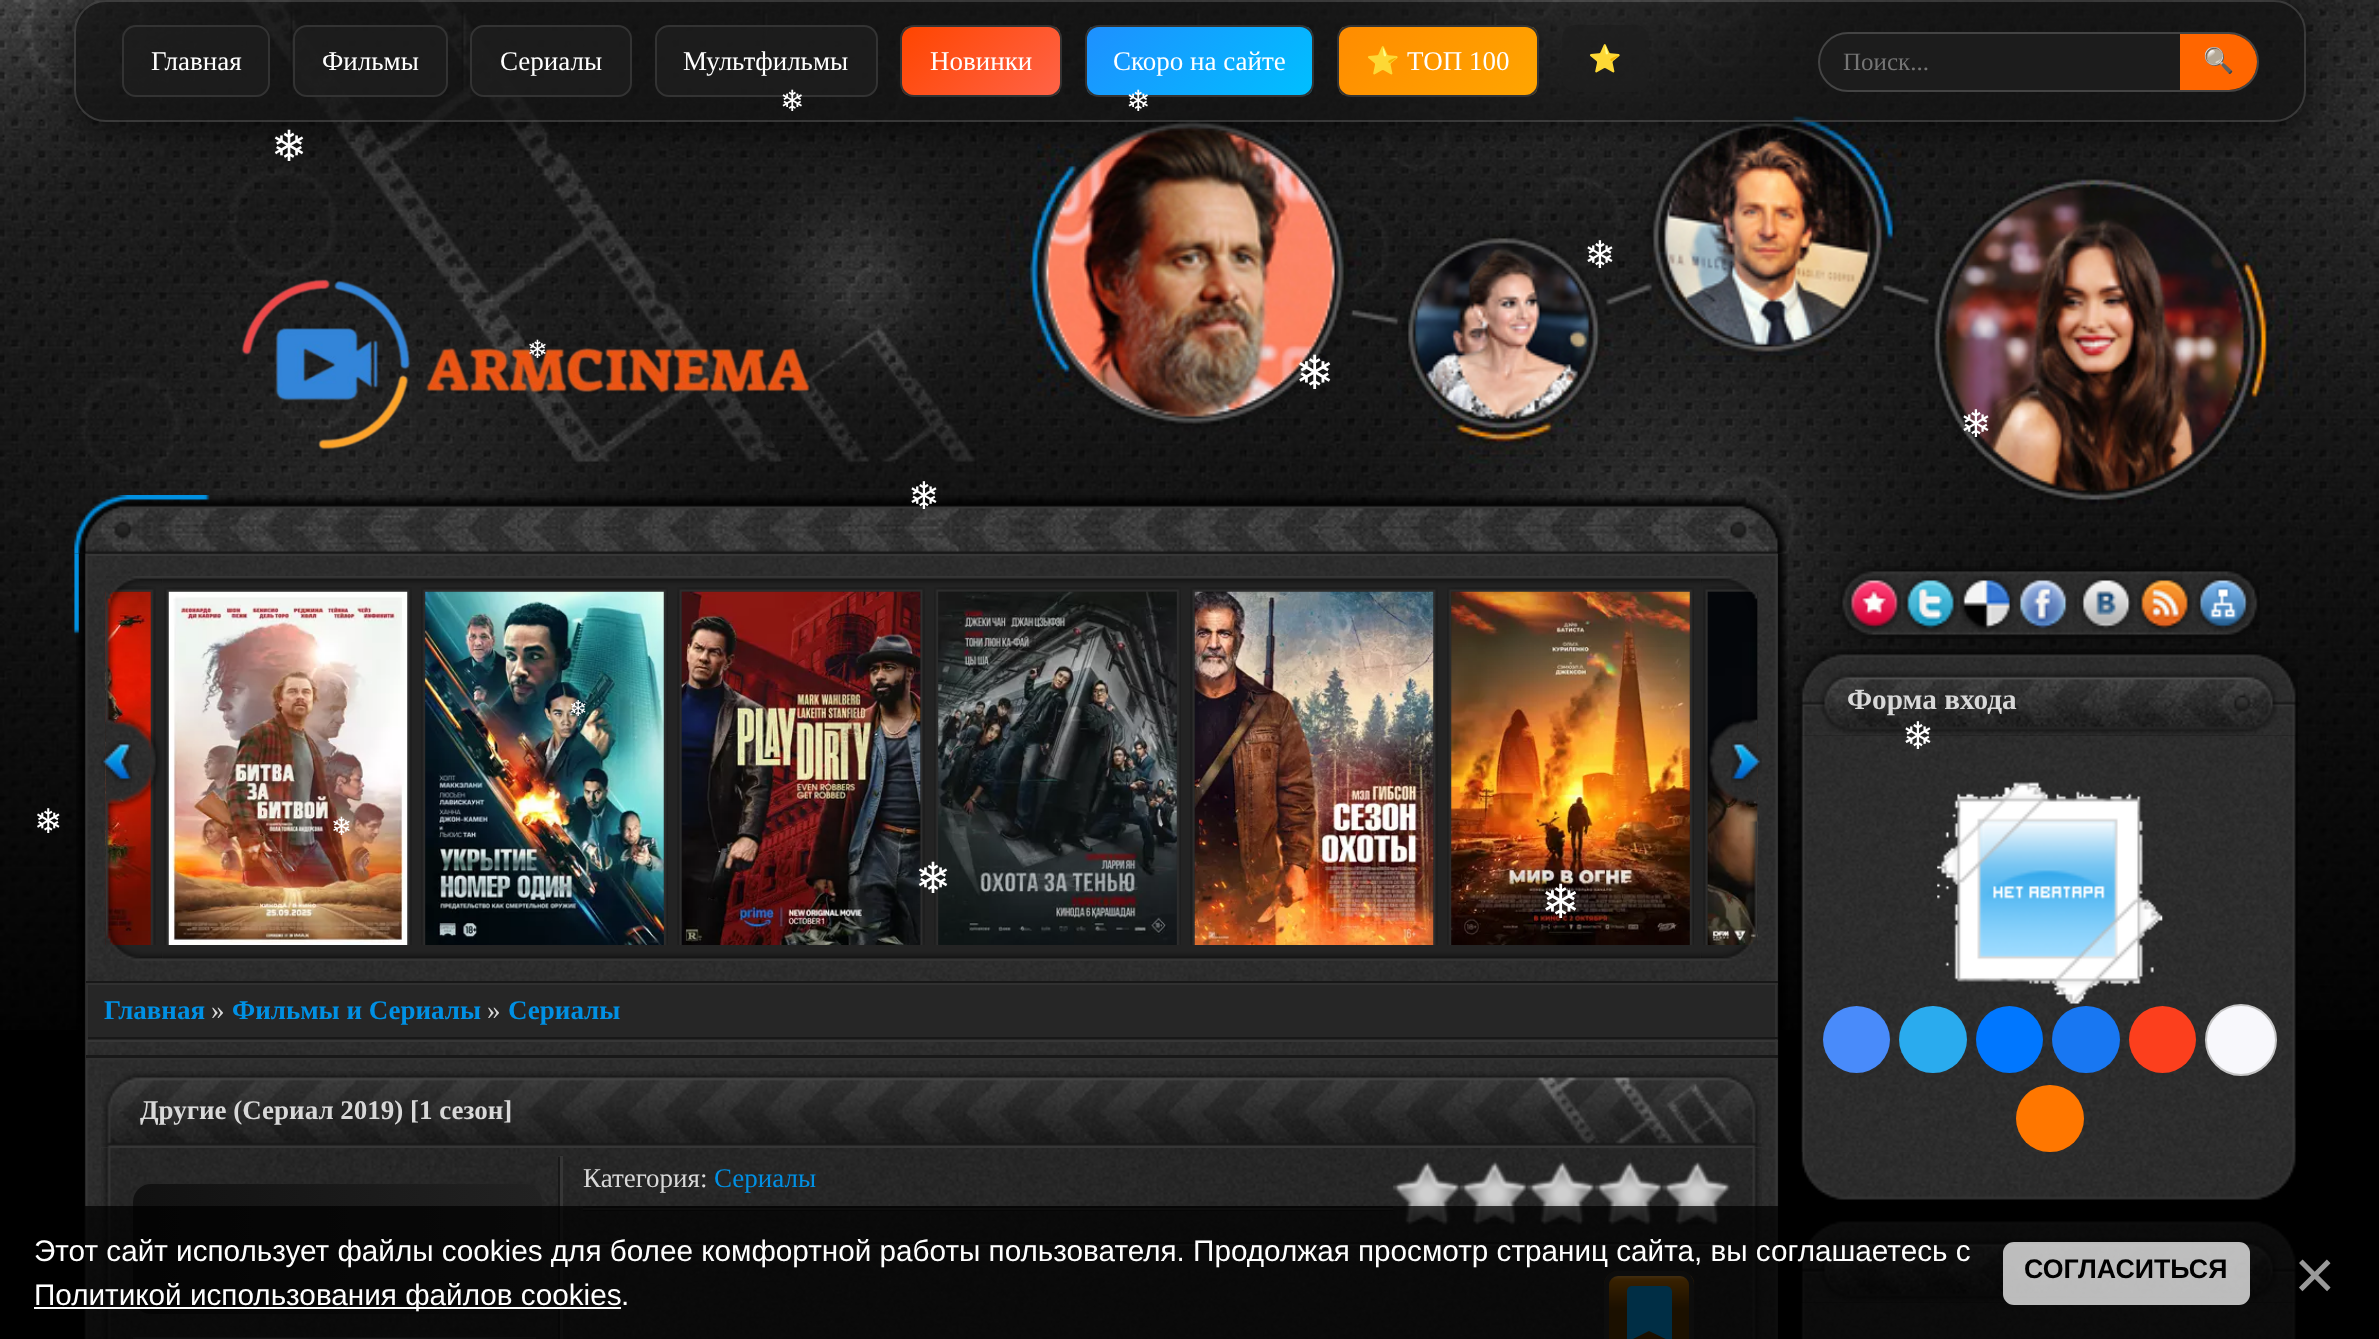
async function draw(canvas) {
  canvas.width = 2379;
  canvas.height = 1339;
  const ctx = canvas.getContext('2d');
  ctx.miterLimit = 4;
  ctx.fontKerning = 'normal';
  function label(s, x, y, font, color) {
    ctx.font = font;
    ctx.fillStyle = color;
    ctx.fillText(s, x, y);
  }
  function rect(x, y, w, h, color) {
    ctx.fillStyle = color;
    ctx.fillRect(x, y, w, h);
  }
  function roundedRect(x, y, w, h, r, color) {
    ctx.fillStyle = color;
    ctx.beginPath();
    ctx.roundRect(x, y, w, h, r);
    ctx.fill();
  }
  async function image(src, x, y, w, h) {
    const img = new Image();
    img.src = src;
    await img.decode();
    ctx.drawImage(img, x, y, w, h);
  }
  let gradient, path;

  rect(0, 0, 2379, 1339, '#000');
  await image('assets/img1.png', 0, 0, 2379, 1030);
  ctx.save();
  path = new Path2D('M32 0H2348V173H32ZM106 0H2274C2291.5 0 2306 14.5 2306 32V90C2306 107.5 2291.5 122 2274 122H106C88.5 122 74 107.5 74 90V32C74 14.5 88.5 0 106 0Z');
  ctx.clip(path, 'evenodd');
  ctx.fillStyle = '#00000080';
  ctx.filter = 'blur(13.5px)';
  ctx.beginPath();
  ctx.roundRect(74, 9, 2232, 122, 32);
  ctx.fill();
  ctx.filter = 'none';
  ctx.restore();
  roundedRect(74, 0, 2232, 122, 32, '#141414b3');
  ctx.beginPath();
  ctx.roundRect(75, 1, 2230, 120, 31);
  ctx.strokeStyle = '#ffffff26';
  ctx.lineWidth = 2;
  ctx.stroke();
  ctx.fillStyle = '#1e1e1ecc';
  ctx.beginPath();
  ctx.roundRect(123, 26, 146, 70, 13);
  ctx.fill();
  ctx.strokeStyle = '#333';
  ctx.stroke();
  label('Главная', 151, 70, '27px Liberation Serif', '#fff');
  ctx.fillStyle = '#1e1e1ecc';
  ctx.beginPath();
  ctx.roundRect(294, 26, 153, 70, 13);
  ctx.fill();
  ctx.stroke();
  label('Фильмы', 322, 70, '27px Liberation Serif', '#fff');
  ctx.fillStyle = '#1e1e1ecc';
  ctx.beginPath();
  ctx.roundRect(471, 26, 160, 70, 13);
  ctx.fill();
  ctx.stroke();
  label('Сериалы', 500, 70, '27px Liberation Serif', '#fff');
  ctx.fillStyle = '#1e1e1ecc';
  ctx.beginPath();
  ctx.roundRect(656, 26, 221, 70, 13);
  ctx.fill();
  ctx.stroke();
  label('Мультфильмы', 683, 70, '27px Liberation Serif', '#fff');
  ctx.save();
  ctx.beginPath();
  ctx.roundRect(900, 25, 162, 72, 14);
  ctx.clip();
  gradient = ctx.createLinearGradient(925, 4.5, 1037, 117);
  gradient.addColorStop(0, '#ff4500');
  gradient.addColorStop(1, '#ff6347');
  ctx.fillStyle = gradient;
  ctx.fillRect(902, 27, 158, 68);
  ctx.restore();
  ctx.beginPath();
  ctx.roundRect(901, 26, 160, 70, 13);
  ctx.stroke();
  label('Новинки', 930, 70, '27px Liberation Serif', '#fff');
  ctx.save();
  ctx.beginPath();
  ctx.roundRect(1085, 25, 229, 72, 14);
  ctx.clip();
  gradient = ctx.createLinearGradient(1126, -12, 1272, 134);
  gradient.addColorStop(0, '#1e90ff');
  gradient.addColorStop(1, '#00bfff');
  ctx.fillStyle = gradient;
  ctx.fillRect(1087, 27, 225, 68);
  ctx.restore();
  ctx.beginPath();
  ctx.roundRect(1086, 26, 227, 70, 13);
  ctx.stroke();
  label('Скоро на сайте', 1113, 70, '27px Liberation Serif', '#fff');
  ctx.save();
  ctx.beginPath();
  ctx.roundRect(1337, 25, 202, 72, 14);
  ctx.clip();
  gradient = ctx.createLinearGradient(1371, -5.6, 1504, 127);
  gradient.addColorStop(0, '#ff8c00');
  gradient.addColorStop(1, '#ffa500');
  ctx.fillStyle = gradient;
  ctx.fillRect(1339, 27, 198, 68);
  ctx.restore();
  ctx.beginPath();
  ctx.roundRect(1338, 26, 200, 70, 13);
  ctx.stroke();
  label('⭐', 1366, 70, '27px Noto Color Emoji', '#fff');
  label('ТОП 100', 1407, 70, '27px Liberation Serif', '#fff');
  roundedRect(1562, 25, 87, 67, 14, '#1e1e1ecc');
  label('⭐', 1588, 68, '27px Noto Color Emoji', '#fff');
  ctx.fillStyle = '#1c1c1c';
  ctx.beginPath();
  ctx.roundRect(1819, 33, 439, 58, 29);
  ctx.fill();
  ctx.strokeStyle = '#444';
  ctx.stroke();
  label('Поиск...', 1843, 70, '25px Liberation Serif', '#757575');
  ctx.fillStyle = '#f60';
  ctx.beginPath();
  ctx.roundRect(2180, 34, 77, 56, [0, 28, 28, 0]);
  ctx.fill();
  label('🔍', 2203, 69, '25px Noto Color Emoji', '#fff');
  await image('assets/img2.png', 241, 279, 569, 171);
  await image('assets/img3.png', 1838, 566, 422, 73);
  await image('assets/img4.png', 1847, 576, 54, 55);
  await image('assets/img5.png', 1903, 576, 55, 56);
  await image('assets/img6.png', 1960, 576, 54, 56);
  await image('assets/img7.png', 2020, 580, 57, 49);
  await image('assets/img8.png', 2079, 576, 55, 55);
  await image('assets/img9.png', 2137, 576, 55, 56);
  await image('assets/img10.png', 2195, 576, 56, 55);
  await image('assets/img11.png', 1801, 1118, 495, 82);
  await image('assets/img12.png', 1797, 649, 501, 87);
  label('Форма входа', 1847, 709, 'bold 29.25px Liberation Serif', '#d8d8d8');
  await image('assets/img13.png', 1797, 735, 501, 417);
  await image('assets/img14.png', 1937, 782, 226, 222);
  ctx.fillStyle = '#498bfa';
  ctx.beginPath();
  ctx.arc(1856.5, 1039.5, 33.5, 0, 2 * Math.PI);
  ctx.fill();
  roundedRect(1899, 1006, 68, 67, 33.5, '#2aabee');
  ctx.fillStyle = '#07f';
  ctx.beginPath();
  ctx.arc(2009.5, 1039.5, 33.5, 0, 2 * Math.PI);
  ctx.fill();
  roundedRect(2052, 1006, 68, 67, 33.5, '#1877f2');
  ctx.fillStyle = '#fc3f1d';
  ctx.beginPath();
  ctx.arc(2162.5, 1039.5, 33.5, 0, 2 * Math.PI);
  ctx.fill();
  ctx.fillStyle = '#f8f8fc';
  ctx.beginPath();
  ctx.arc(2241, 1040, 35, 0, 2 * Math.PI);
  ctx.fill();
  ctx.strokeStyle = '#c4c4c4';
  ctx.stroke();
  roundedRect(2016, 1085, 68, 67, 33.5, '#f70');
  await image('assets/img15.png', 1801, 1221, 495, 82);
  await image('assets/img16.png', 1801, 1302, 495, 37);
  await image('assets/img20.png', 76, 553, 1712, 786);
  rect(1777, 556, 1, 783, '#2a2a2a');
  await image('assets/img21.png', 85, 553, 1693, 786);
  await image('assets/img17.png', 76, 495, 1712, 59);
  await image('assets/img18.png', 74, 495, 136, 59);
  await image('assets/img19.png', 74, 553, 5, 82);
  rect(86, 554, 1692, 2, '#363636');
  await image('assets/img22.png', 106, 576, 1651, 385);
  await image('assets/img27.png', 112, 586, 44, 359);
  await image('assets/img28.png', 105, 591, 46, 354);
  await image('assets/img23.png', 105, 578, 57, 381);
  await image('assets/img24.png', 101, 740, 31, 43);
  await image('assets/img37.png', 1703, 586, 51, 359);
  await image('assets/img38.png', 1707, 591, 51, 354);
  await image('assets/img25.png', 1701, 576, 57, 383);
  await image('assets/img26.png', 1731, 740, 31, 43);
  await image('assets/img29.png', 164, 587, 248, 358);
  await image('assets/img30.png', 168, 591, 240, 354);
  await image('assets/img31.png', 421, 587, 247, 358);
  await image('assets/img32.png', 425, 591, 239, 354);
  await image('assets/img29.png', 677, 587, 248, 358);
  await image('assets/img33.png', 681, 591, 240, 354);
  await image('assets/img31.png', 934, 587, 247, 358);
  await image('assets/img34.png', 938, 591, 239, 354);
  await image('assets/img29.png', 1190, 587, 248, 358);
  await image('assets/img35.png', 1194, 591, 240, 354);
  await image('assets/img31.png', 1447, 587, 247, 358);
  await image('assets/img36.png', 1451, 591, 239, 354);
  rect(88, 985, 1690, 55, '#262626');
  rect(86, 981, 1692, 2, '#181818');
  rect(86, 1040, 1692, 2, '#363636');
  rect(86, 983, 1692, 2, '#303030');
  rect(1775, 983, 2, 57, '#303030');
  rect(86, 1037, 1692, 2, '#181818');
  rect(86, 983, 2, 57, '#303030');
  label('Главная', 104, 1019, 'bold 27px Liberation Serif', '#0090e4');
  label('»', 211, 1019, '27px Liberation Serif', '#d8d8d8');
  label('Фильмы и Сериалы', 232, 1019, 'bold 27px Liberation Serif', '#0090e4');
  label('»', 487, 1019, '27px Liberation Serif', '#d8d8d8');
  label('Сериалы', 508, 1019, 'bold 27px Liberation Serif', '#0090e4');
  rect(86, 1055, 1692, 3, '#181818');
  rect(86, 1058, 1692, 2, '#303030');
  rect(101, 1148, 1661, 191, '#292929');
  await image('assets/img39.png', 102, 1148, 1659, 191);
  rect(101, 1071, 1661, 77, '#353535');
  await image('assets/img40.png', 101, 1071, 1661, 77);
  label('Другие (Сериал 2019) [1 сезон]', 140, 1119, 'bold 27px Liberation Serif', '#d8d8d8');
  rect(560, 1242, 1170, 2, '#181818');
  rect(560, 1244, 1170, 2, '#363636');
  rect(560, 1156, 3, 183, '#363636');
  rect(558, 1157, 2, 182, '#181818');
  label('Категория:', 583, 1187, '27px Liberation Serif', '#d8d8d8');
  label('Сериалы', 714, 1187, '27px Liberation Serif', '#0090e4');
  rect(583, 1206, 810, 5, '#181818');
  rect(583, 1208, 810, 2, '#303030');
  await image('assets/img41.png', 1392, 1161, 338, 64);
  roundedRect(1604, 1271, 90, 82, 14, '#663c00');
  await image('assets/img42.png', 1604, 1275, 91, 33);
  ctx.beginPath();
  ctx.roundRect(1606.5, 1273.5, 85, 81, 11.5);
  ctx.strokeStyle = '#323232';
  ctx.lineWidth = 5;
  ctx.stroke();
  ctx.fillStyle = '#0af';
  path = new Path2D('M1632 1286C1629 1286 1627 1288 1627 1292V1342L1649 1331L1672 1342V1292C1672 1288 1669 1286 1666 1286Z');
  ctx.fill(path);
  gradient = ctx.createLinearGradient(133, 1249, 542, 1249);
  gradient.addColorStop(0, '#111');
  gradient.addColorStop(1, '#222');
  ctx.fillStyle = gradient;
  ctx.beginPath();
  ctx.roundRect(133, 1184, 409, 130, 18);
  ctx.fill();
  ctx.strokeStyle = '#353535';
  ctx.lineWidth = 2;
  ctx.strokeRect(134, 1338, 401, 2);
  await image('assets/img43.png', 135, 1338, 398, 1);
  label('❄', 780, 111, '29.25px DejaVu Sans', '#fff');
  label('❄', 1126, 111, '29.25px DejaVu Sans', '#fff');
  label('❄', 271, 161, '43px DejaVu Sans', '#fff');
  label('❄', 1584, 268, '38px DejaVu Sans', '#fff');
  label('❄', 527, 358, '25px DejaVu Sans', '#fff');
  label('❄', 1295, 389, '47px DejaVu Sans', '#fff');
  label('❄', 1960, 437, '38px DejaVu Sans', '#fff');
  label('❄', 908, 509, '38px DejaVu Sans', '#fff');
  label('❄', 569, 716, '22px DejaVu Sans', '#fff');
  label('❄', 1902, 749, '38px DejaVu Sans', '#fff');
  label('❄', 34, 833, '34px DejaVu Sans', '#fff');
  label('❄', 331, 835, '25px DejaVu Sans', '#fff');
  label('❄', 915, 893, '43px DejaVu Sans', '#fff');
  label('❄', 1541, 918, '47px DejaVu Sans', '#fff');
  rect(85, 1206, 2211, 133, '#000000ba');
  label('Этот сайт использует файлы cookies для более комфортной работы пользователя. Продолжая просмотр страниц сайта, вы соглашаетесь с', 34, 1261, '29.7px Liberation Sans', '#fff');
  rect(34, 1307, 587, 2, '#fff');
  label('Политикой использования файлов cookies', 34, 1305, '29.7px Liberation Sans', '#fff');
  label('.', 621, 1305, '29.7px Liberation Sans', '#fff');
  roundedRect(2003, 1242, 247, 63, 11, '#ffffffba');
  label('СОГЛАСИТЬСЯ', 2024, 1278, 'bold 26.75px Liberation Sans', '#000');
  label('×', 2294, 1299, '71px Liberation Sans', '#999');
}

draw(document.querySelector('canvas'));
